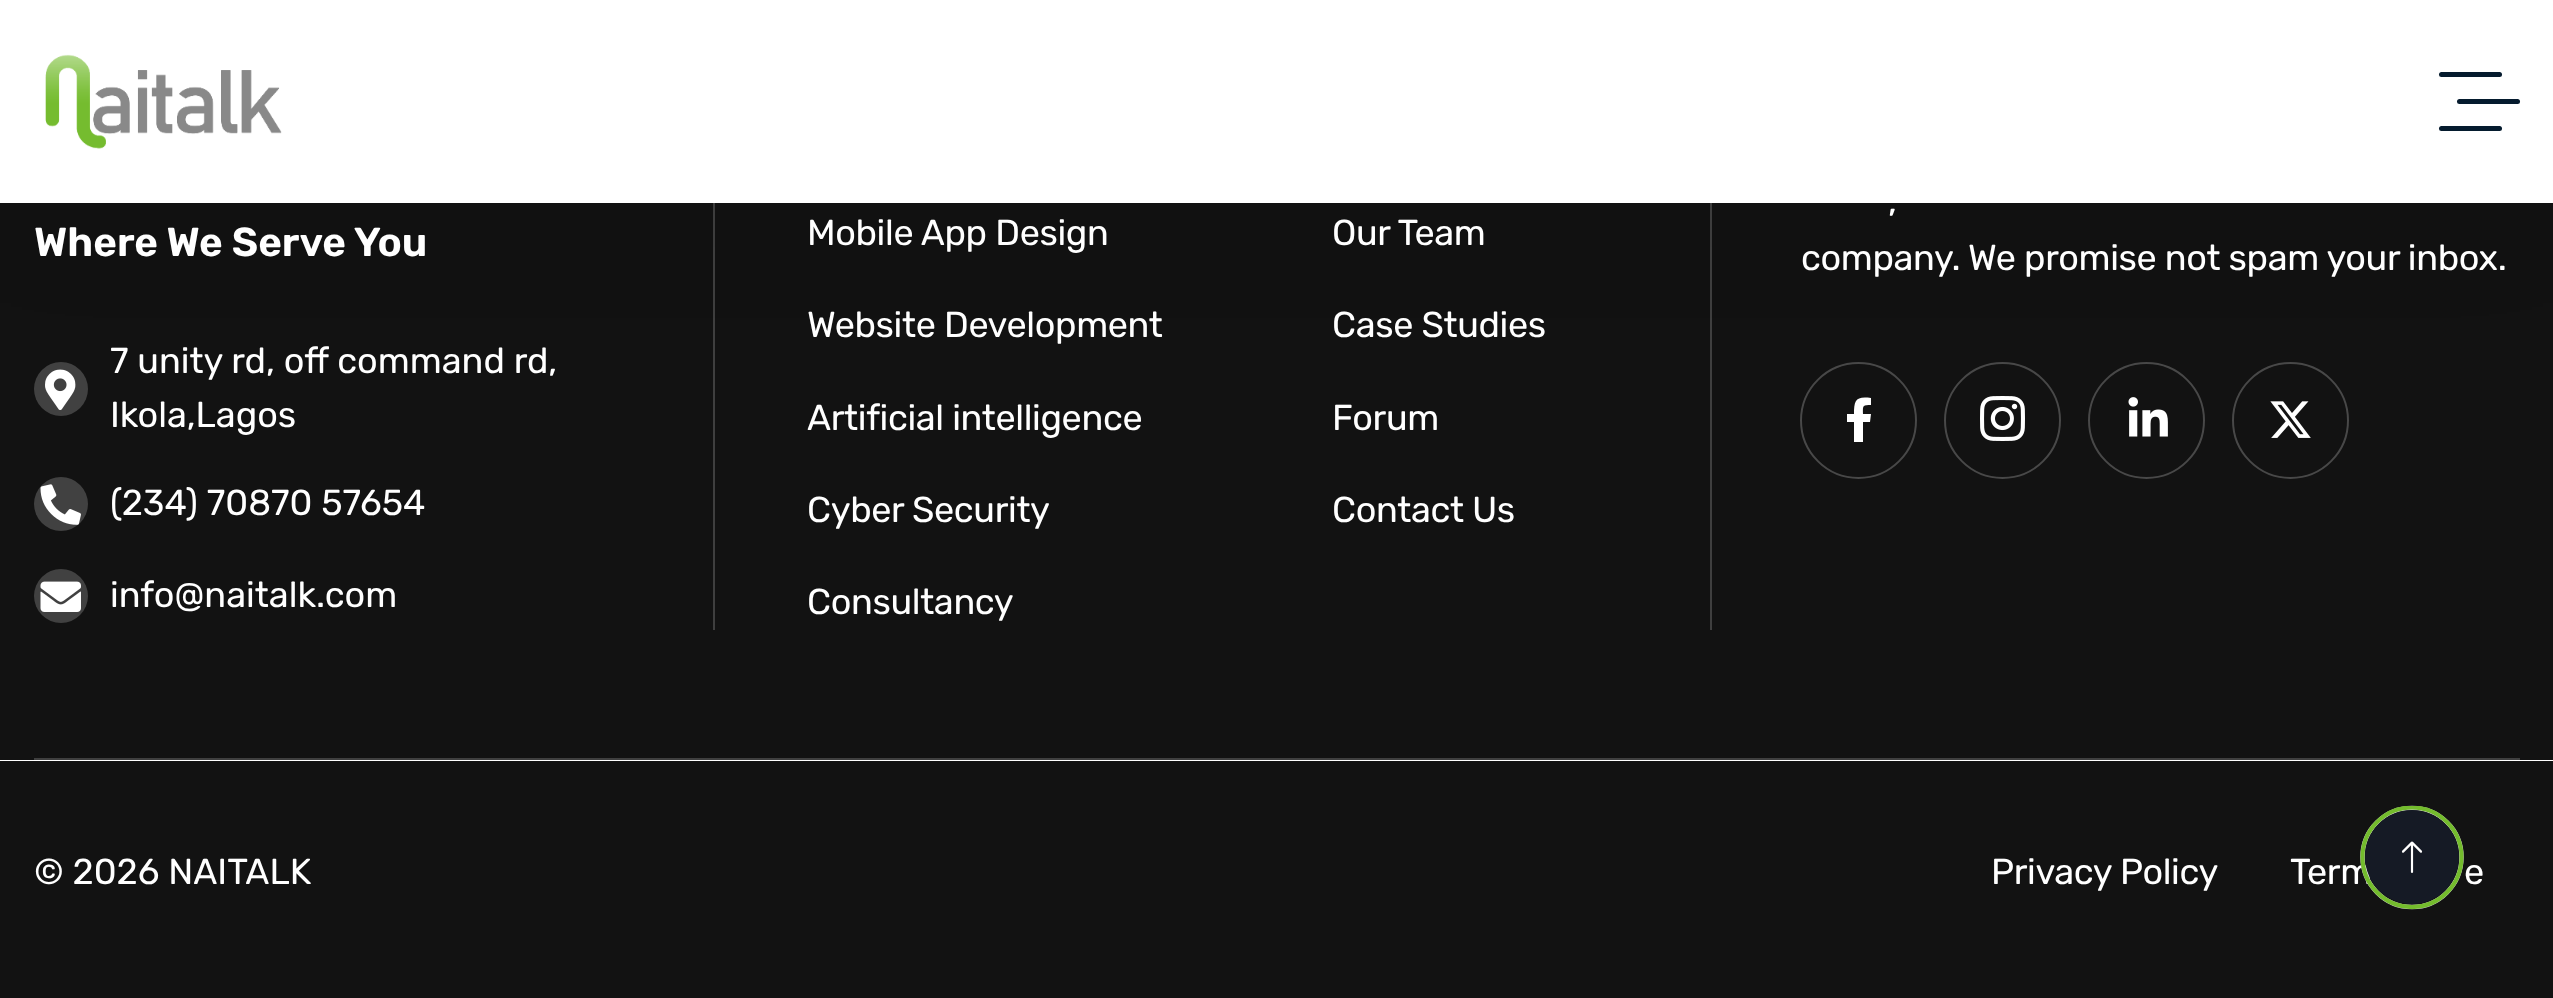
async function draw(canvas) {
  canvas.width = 2553;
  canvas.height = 998;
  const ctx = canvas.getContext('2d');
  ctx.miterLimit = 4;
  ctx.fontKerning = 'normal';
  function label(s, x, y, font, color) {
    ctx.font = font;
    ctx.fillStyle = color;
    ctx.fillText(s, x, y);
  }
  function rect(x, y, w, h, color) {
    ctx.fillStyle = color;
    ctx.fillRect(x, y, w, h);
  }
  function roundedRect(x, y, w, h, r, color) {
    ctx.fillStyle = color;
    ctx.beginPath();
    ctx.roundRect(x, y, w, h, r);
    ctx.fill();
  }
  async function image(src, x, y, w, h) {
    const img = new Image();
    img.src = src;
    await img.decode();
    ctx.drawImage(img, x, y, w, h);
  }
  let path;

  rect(0, 0, 2553, 998, '#fff');
  rect(0, 203, 2553, 557, '#121212');
  rect(713, 203, 2, 427, '#3f3f3f');
  ctx.fillStyle = '#414141';
  ctx.beginPath();
  ctx.arc(61, 389, 27, 0, 2 * Math.PI);
  ctx.fill();
  await image('assets/img2.png', 45, 369, 31, 41);
  rect(1710, 203, 2, 427, '#3f3f3f');
  ctx.beginPath();
  ctx.arc(1858.5, 420.5, 57.5, 0, 2 * Math.PI);
  ctx.strokeStyle = '#484848';
  ctx.lineWidth = 2;
  ctx.stroke();
  ctx.beginPath();
  ctx.arc(2002.5, 420.5, 57.5, 0, 2 * Math.PI);
  ctx.stroke();
  ctx.beginPath();
  ctx.arc(2146.5, 420.5, 57.5, 0, 2 * Math.PI);
  ctx.stroke();
  ctx.beginPath();
  ctx.arc(2290.5, 420.5, 57.5, 0, 2 * Math.PI);
  ctx.stroke();
  ctx.fillStyle = '#0000000d';
  ctx.filter = 'blur(56px)';
  ctx.beginPath();
  ctx.rect(0, 23, 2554, 202);
  ctx.fill();
  ctx.filter = 'none';
  rect(0, 0, 2553, 203, '#fff');
  await image('assets/img1.png', 45, 54, 237, 95);
  roundedRect(2439, 72, 63, 5, 2.5, '#051b2e');
  roundedRect(2457, 99, 63, 5, 2.5, '#051b2e');
  roundedRect(2439, 126, 63, 5, 2.5, '#051b2e');
  label('Where We Serve You', 34, 256, '600 40.5px Rubik', '#fff');
  label('7 unity rd, off command rd,', 110, 373, '36px Rubik', '#fff');
  label('Ikola,Lagos', 110, 427, '36px Rubik', '#fff');
  ctx.fillStyle = '#414141';
  ctx.beginPath();
  ctx.arc(61, 504, 27, 0, 2 * Math.PI);
  ctx.fill();
  await image('assets/img3.png', 40, 484, 41, 41);
  label('(234) 70870 57654', 110, 515, '36px Rubik', '#fff');
  ctx.fillStyle = '#414141';
  ctx.beginPath();
  ctx.arc(61, 596, 27, 0, 2 * Math.PI);
  ctx.fill();
  await image('assets/img4.png', 40, 581, 41, 31);
  label('info@naitalk.com', 110, 607, '36px Rubik', '#fff');
  ctx.letterSpacing = '-0.35px';
  label('Mobile App Design', 807, 245, '36px Rubik', '#fff');
  label('Website Development', 807, 337, '36px Rubik', '#fff');
  label('Artificial intelligence', 807, 430, '36px Rubik', '#fff');
  label('Cyber Security', 807, 522, '36px Rubik', '#fff');
  label('Consultancy', 807, 614, '36px Rubik', '#fff');
  label('Our Team', 1332, 245, '36px Rubik', '#fff');
  label('Case Studies', 1332, 337, '36px Rubik', '#fff');
  label('Forum', 1332, 430, '36px Rubik', '#fff');
  label('Contact Us', 1332, 522, '36px Rubik', '#fff');
  label(',', 1888, 213, '36px Rubik', '#fff');
  label('company. We promise not spam your inbox.', 1801, 270, '36px Rubik', '#fff');
  path = new Path2D('M1870 422H1863V442H1854V422H1847V414H1854C1854 400 1856 396 1871 398V405C1862 405 1863 406 1863 414H1871Z');
  ctx.fill(path);
  await image('assets/img5.png', 1980, 396, 45, 45);
  await image('assets/img6.png', 2128, 397, 40, 40);
  await image('assets/img7.png', 2270, 401, 41, 37);
  rect(34, 758, 2486, 2, '#3f3f3f');
  rect(0, 761, 2553, 237, '#121212');
  ctx.letterSpacing = '0px';
  label('© 2026 NAITALK', 34, 884, '36px Rubik', '#fff');
  ctx.letterSpacing = '-0.35px';
  label('Privacy Policy', 1991, 884, '36px Rubik', '#fff');
  label('Term', 2290, 884, '36px Rubik', '#fff');
  label('e', 2464, 884, '36px Rubik', '#fff');
  path = new Path2D('M2362.5 857C2362.5 830 2384.5 808 2412 808C2439.5 808 2461.5 830 2461.5 857C2461.5 884.5 2439.5 907 2412 907C2384.5 907 2362.5 884.5 2362.5 857Z');
  ctx.strokeStyle = '#d4d4d4';
  ctx.lineWidth = 4.5;
  ctx.stroke(path);
  ctx.fillStyle = '#151a25';
  path = new Path2D('M2365 857C2365 831 2386 810 2412 810C2438 810 2459 831 2459 857C2459 883 2438 904 2412 904C2386 904 2365 883 2365 857Z');
  ctx.fill(path);
  ctx.save();
  ctx.beginPath();
  ctx.rect(2360, 806, 104, 103);
  ctx.clip();
  path = new Path2D('M2412 807.5C2439.5 807.5 2461.5 830 2461.5 857C2461.5 884.5 2439.5 907 2412 907C2384.5 907 2362.5 884.5 2362.5 857C2362.5 830 2384.5 807.5 2412 807.5');
  ctx.strokeStyle = '#74bc2d';
  ctx.lineWidth = 4.1;
  ctx.stroke(path);
  ctx.restore();
  await image('assets/img8.png', 2401, 841, 22, 32);
}

draw(document.querySelector('canvas'));
